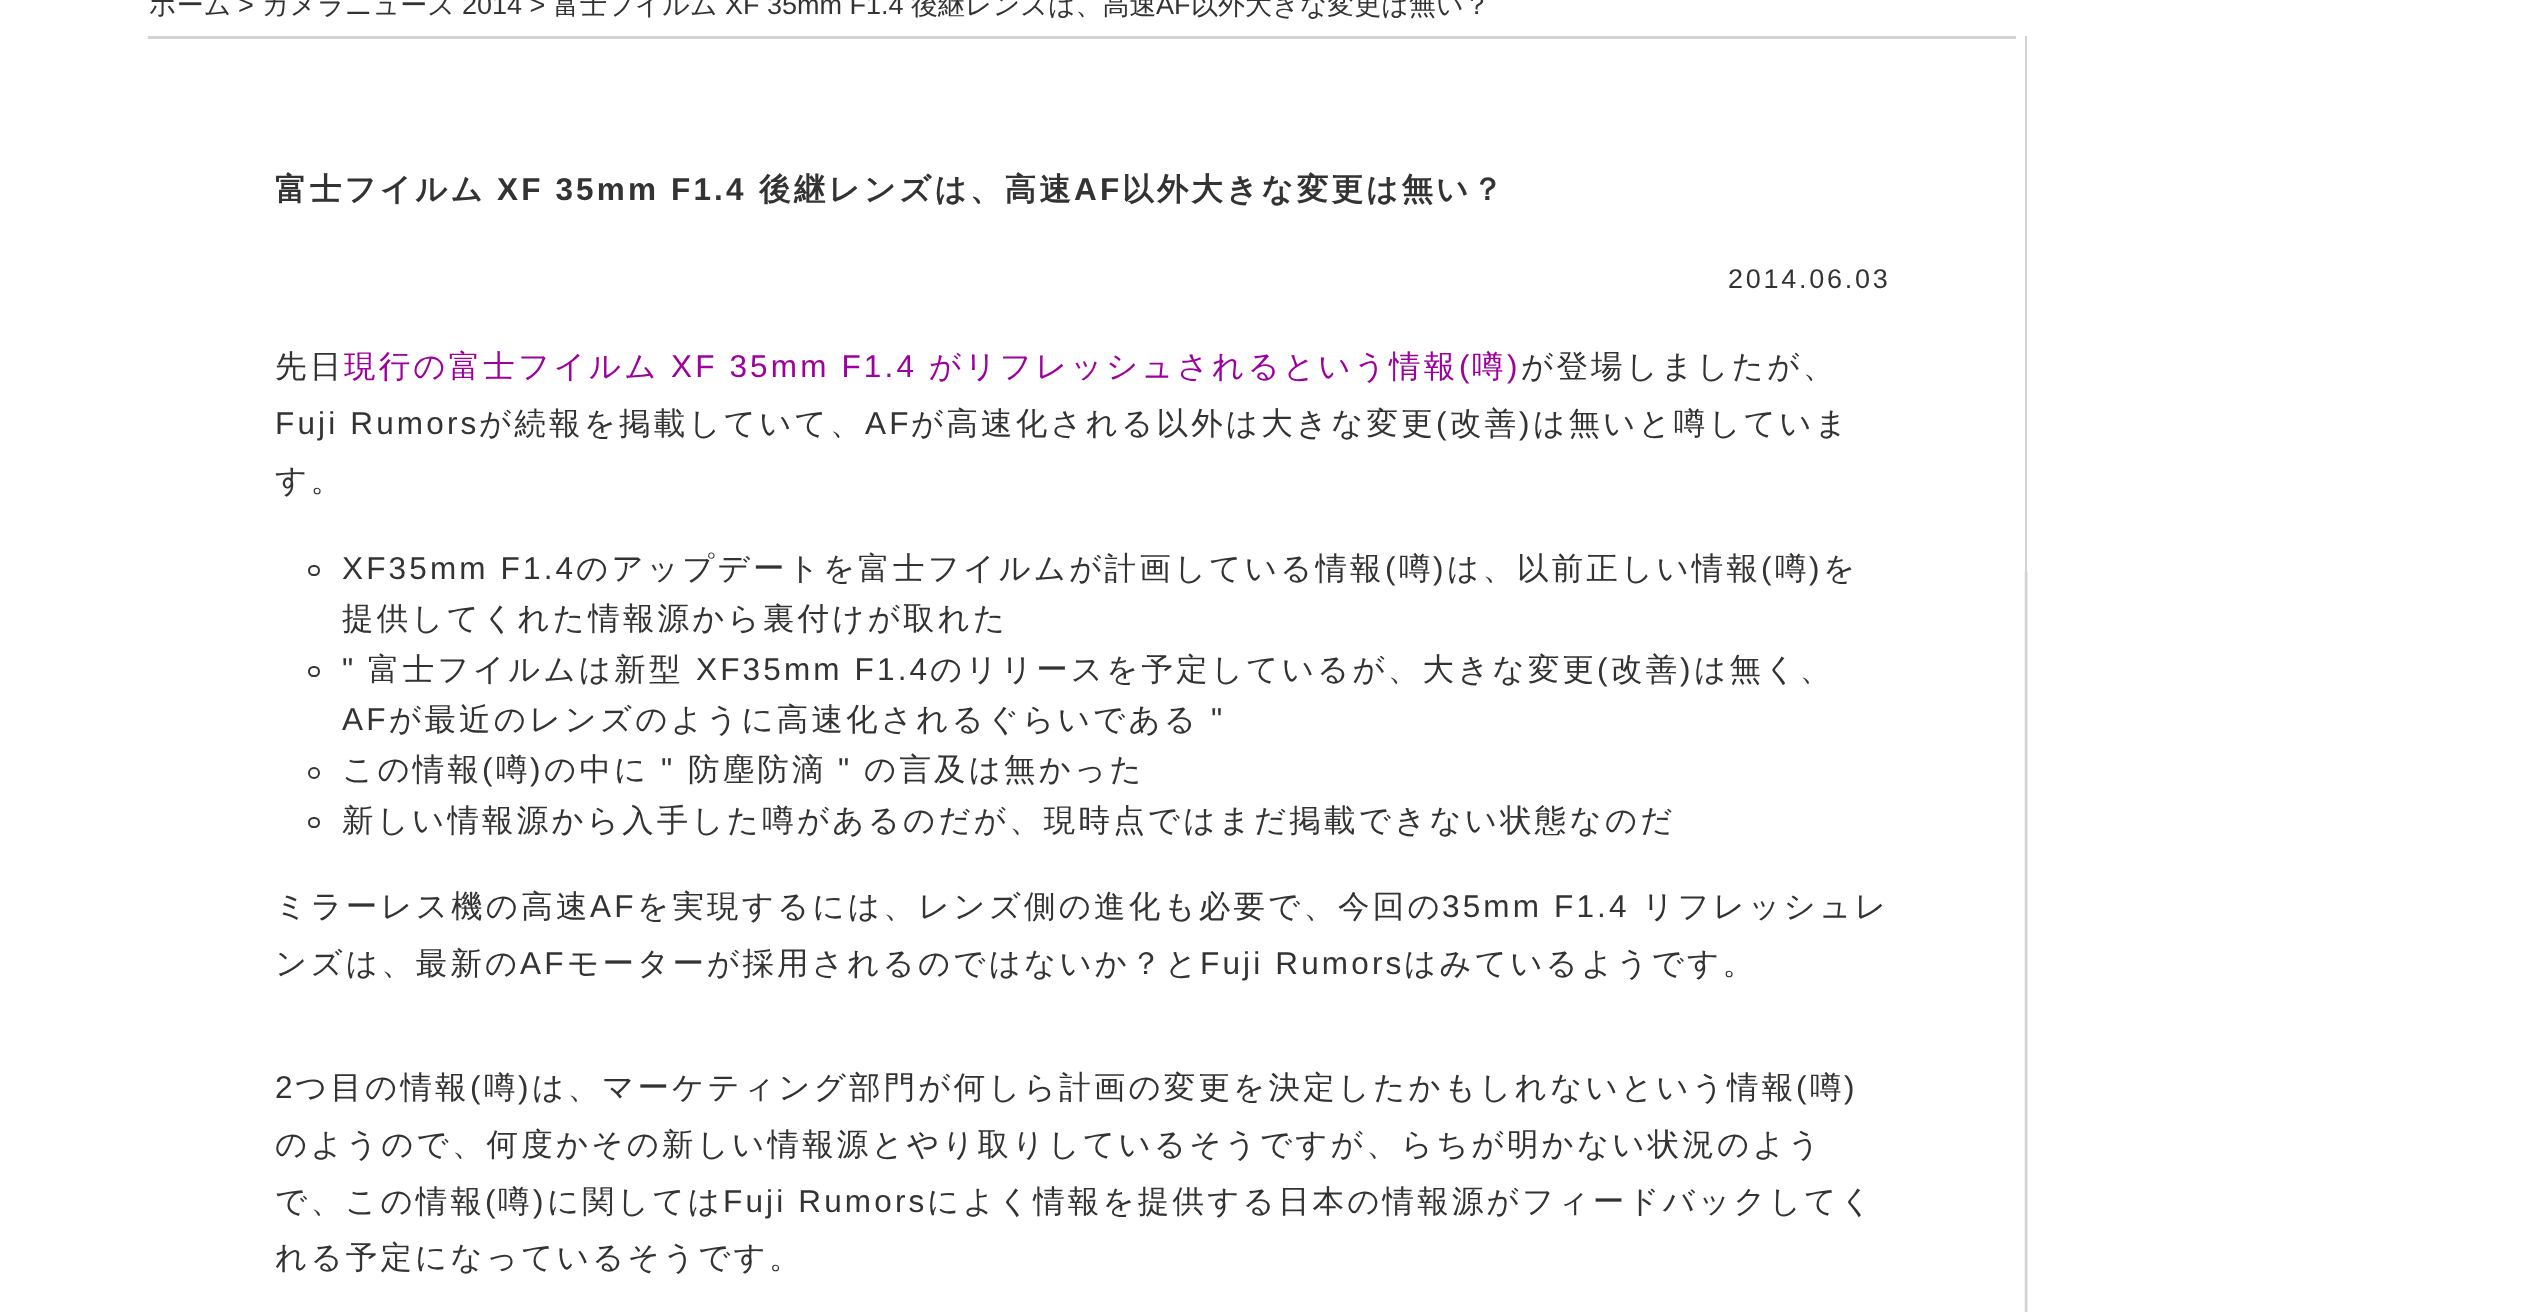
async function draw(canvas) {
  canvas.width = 2528;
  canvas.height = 1312;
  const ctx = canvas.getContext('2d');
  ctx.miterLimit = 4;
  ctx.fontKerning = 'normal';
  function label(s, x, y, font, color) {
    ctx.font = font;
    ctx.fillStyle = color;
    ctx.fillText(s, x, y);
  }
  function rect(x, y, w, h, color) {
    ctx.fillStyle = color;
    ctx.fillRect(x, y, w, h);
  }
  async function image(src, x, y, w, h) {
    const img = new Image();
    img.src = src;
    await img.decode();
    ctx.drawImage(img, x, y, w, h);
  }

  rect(0, 0, 2528, 1312, '#fff');
  await image('assets/img1.png', 2024, 571, 4, 741);
  label('ホーム', 149, 14, '500 27px WenQuanYi Zen Hei', '#333');
  label('>', 238, 14, '27px Liberation Sans', '#333');
  label('カメラニュース', 262, 14, '500 27px WenQuanYi Zen Hei', '#333');
  label('2014 >', 462, 14, '27px Liberation Sans', '#333');
  label('富士フイルム', 553, 14, '500 27px WenQuanYi Zen Hei', '#333');
  label('XF 35mm F1.4', 725, 14, '27px Liberation Sans', '#333');
  label('後継レンズは、高速', 911, 14, '500 27px WenQuanYi Zen Hei', '#333');
  label('AF', 1156, 14, '27px Liberation Sans', '#333');
  label('以外大きな変更は無い？', 1191, 14, '500 27px WenQuanYi Zen Hei', '#333');
  rect(148, 36, 1868, 3, '#d3d3d5');
  rect(2025, 36, 2, 1276, '#d3d3d5');
  ctx.letterSpacing = '3.15px';
  label('富士フイルム', 275, 200, 'bold 31.5px WenQuanYi Zen Hei', '#333');
  label('XF 35mm F1.4', 497, 200, 'bold 31.5px Liberation Sans', '#333');
  label('後継レンズは、高速', 759, 200, 'bold 31.5px WenQuanYi Zen Hei', '#333');
  label('AF', 1074, 200, 'bold 31.5px Liberation Sans', '#333');
  label('以外大きな変更は無い？', 1122, 200, 'bold 31.5px WenQuanYi Zen Hei', '#333');
  ctx.letterSpacing = '2.75px';
  label('2014.06.03', 1728, 288, '27px Liberation Sans', '#333');
  ctx.letterSpacing = '3.15px';
  label('先日', 275, 377, '500 31.5px WenQuanYi Zen Hei', '#333');
  label('現行の富士フイルム', 344, 377, '500 31.5px WenQuanYi Zen Hei', '#9d009d');
  label('XF 35mm F1.4', 671, 377, '31.5px Liberation Sans', '#9d009d');
  label('がリフレッシュされるという情報', 929, 377, '500 31.5px WenQuanYi Zen Hei', '#9d009d');
  label('(', 1459, 377, '31.5px Liberation Sans', '#9d009d');
  label('噂', 1472, 377, '500 31.5px WenQuanYi Zen Hei', '#9d009d');
  label(')', 1507, 377, '31.5px Liberation Sans', '#9d009d');
  label('が登場しましたが、', 1521, 377, '500 31.5px WenQuanYi Zen Hei', '#333');
  label('Fuji Rumors', 275, 434, '31.5px Liberation Sans', '#333');
  label('が続報を掲載していて、', 479, 434, '500 31.5px WenQuanYi Zen Hei', '#333');
  label('AF', 865, 434, '31.5px Liberation Sans', '#333');
  label('が高速化される以外は大きな変更', 911, 434, '500 31.5px WenQuanYi Zen Hei', '#333');
  label('(', 1436, 434, '31.5px Liberation Sans', '#333');
  label('改善', 1450, 434, '500 31.5px WenQuanYi Zen Hei', '#333');
  label(')', 1519, 434, '31.5px Liberation Sans', '#333');
  label('は無いと噂していま', 1533, 434, '500 31.5px WenQuanYi Zen Hei', '#333');
  label('す。', 275, 491, '500 31.5px WenQuanYi Zen Hei', '#333');
  ctx.beginPath();
  ctx.roundRect(309, 566, 10, 9, 4.5);
  ctx.strokeStyle = '#333';
  ctx.lineWidth = 2;
  ctx.stroke();
  label('XF35mm F1.4', 342, 579, '31.5px Liberation Sans', '#333');
  label('のアップデートを富士フイルムが計画している情報', 576, 579, '500 31.5px WenQuanYi Zen Hei', '#333');
  label('(', 1385, 579, '31.5px Liberation Sans', '#333');
  label('噂', 1399, 579, '500 31.5px WenQuanYi Zen Hei', '#333');
  label(')', 1433, 579, '31.5px Liberation Sans', '#333');
  label('は、以前正しい情報', 1447, 579, '500 31.5px WenQuanYi Zen Hei', '#333');
  label('(', 1761, 579, '31.5px Liberation Sans', '#333');
  label('噂', 1775, 579, '500 31.5px WenQuanYi Zen Hei', '#333');
  label(')', 1809, 579, '31.5px Liberation Sans', '#333');
  label('を', 1823, 579, '500 31.5px WenQuanYi Zen Hei', '#333');
  label('提供してくれた情報源から裏付けが取れた', 342, 629, '500 31.5px WenQuanYi Zen Hei', '#333');
  ctx.beginPath();
  ctx.roundRect(309, 667, 10, 9, 4.5);
  ctx.stroke();
  label('"', 342, 680, '31.5px Liberation Sans', '#333');
  label('富士フイルムは新型', 368, 680, '500 31.5px WenQuanYi Zen Hei', '#333');
  label('XF35mm F1.4', 696, 680, '31.5px Liberation Sans', '#333');
  label('のリリースを予定しているが、大きな変更', 930, 680, '500 31.5px WenQuanYi Zen Hei', '#333');
  label('(', 1597, 680, '31.5px Liberation Sans', '#333');
  label('改善', 1611, 680, '500 31.5px WenQuanYi Zen Hei', '#333');
  label(')', 1680, 680, '31.5px Liberation Sans', '#333');
  label('は無く、', 1694, 680, '500 31.5px WenQuanYi Zen Hei', '#333');
  label('AF', 342, 730, '31.5px Liberation Sans', '#333');
  label('が最近のレンズのように高速化されるぐらいである', 389, 730, '500 31.5px WenQuanYi Zen Hei', '#333');
  label('"', 1211, 730, '31.5px Liberation Sans', '#333');
  label('この情報', 342, 780, '500 31.5px WenQuanYi Zen Hei', '#333');
  label('(', 482, 780, '31.5px Liberation Sans', '#333');
  label('噂', 496, 780, '500 31.5px WenQuanYi Zen Hei', '#333');
  label(')', 530, 780, '31.5px Liberation Sans', '#333');
  label('の中に', 544, 780, '500 31.5px WenQuanYi Zen Hei', '#333');
  label('"', 661, 780, '31.5px Liberation Sans', '#333');
  label('防塵防滴', 688, 780, '500 31.5px WenQuanYi Zen Hei', '#333');
  label('"', 838, 780, '31.5px Liberation Sans', '#333');
  label('の言及は無かった', 864, 780, '500 31.5px WenQuanYi Zen Hei', '#333');
  ctx.beginPath();
  ctx.arc(314, 773, 5, 0, 2 * Math.PI);
  ctx.stroke();
  ctx.beginPath();
  ctx.roundRect(309, 818, 10, 9, 4.5);
  ctx.stroke();
  label('新しい情報源から入手した噂があるのだが、現時点ではまだ掲載できない状態なのだ', 342, 831, '500 31.5px WenQuanYi Zen Hei', '#333');
  label('ミラーレス機の高速', 275, 917, '500 31.5px WenQuanYi Zen Hei', '#333');
  label('AF', 590, 917, '31.5px Liberation Sans', '#333');
  label('を実現するには、レンズ側の進化も必要で、今回の', 637, 917, '500 31.5px WenQuanYi Zen Hei', '#333');
  label('35mm F1.4', 1442, 917, '31.5px Liberation Sans', '#333');
  label('リフレッシュレ', 1642, 917, '500 31.5px WenQuanYi Zen Hei', '#333');
  label('ンズは、最新の', 275, 974, '500 31.5px WenQuanYi Zen Hei', '#333');
  label('AF', 520, 974, '31.5px Liberation Sans', '#333');
  label('モーターが採用されるのではないか？と', 567, 974, '500 31.5px WenQuanYi Zen Hei', '#333');
  label('Fuji Rumors', 1200, 974, '31.5px Liberation Sans', '#333');
  label('はみているようです。', 1404, 974, '500 31.5px WenQuanYi Zen Hei', '#333');
  label('2', 275, 1098, '31.5px Liberation Sans', '#333');
  label('つ目の情報', 295, 1098, '500 31.5px WenQuanYi Zen Hei', '#333');
  label('(', 470, 1098, '31.5px Liberation Sans', '#333');
  label('噂', 484, 1098, '500 31.5px WenQuanYi Zen Hei', '#333');
  label(')', 518, 1098, '31.5px Liberation Sans', '#333');
  label('は、マーケティング部門が何しら計画の変更を決定したかもしれないという情報', 532, 1098, '500 31.5px WenQuanYi Zen Hei', '#333');
  label('(', 1796, 1098, '31.5px Liberation Sans', '#333');
  label('噂', 1810, 1098, '500 31.5px WenQuanYi Zen Hei', '#333');
  label(')', 1844, 1098, '31.5px Liberation Sans', '#333');
  label('のようので、何度かその新しい情報源とやり取りしているそうですが、らちが明かない状況のよう', 275, 1155, '500 31.5px WenQuanYi Zen Hei', '#333');
  label('で、この情報', 275, 1212, '500 31.5px WenQuanYi Zen Hei', '#333');
  label('(', 485, 1212, '31.5px Liberation Sans', '#333');
  label('噂', 498, 1212, '500 31.5px WenQuanYi Zen Hei', '#333');
  label(')', 533, 1212, '31.5px Liberation Sans', '#333');
  label('に関しては', 547, 1212, '500 31.5px WenQuanYi Zen Hei', '#333');
  label('Fuji Rumors', 723, 1212, '31.5px Liberation Sans', '#333');
  label('によく情報を提供する日本の情報源がフィードバックしてく', 927, 1212, '500 31.5px WenQuanYi Zen Hei', '#333');
  label('れる予定になっているそうです。', 275, 1268, '500 31.5px WenQuanYi Zen Hei', '#333');
}

draw(document.querySelector('canvas'));
